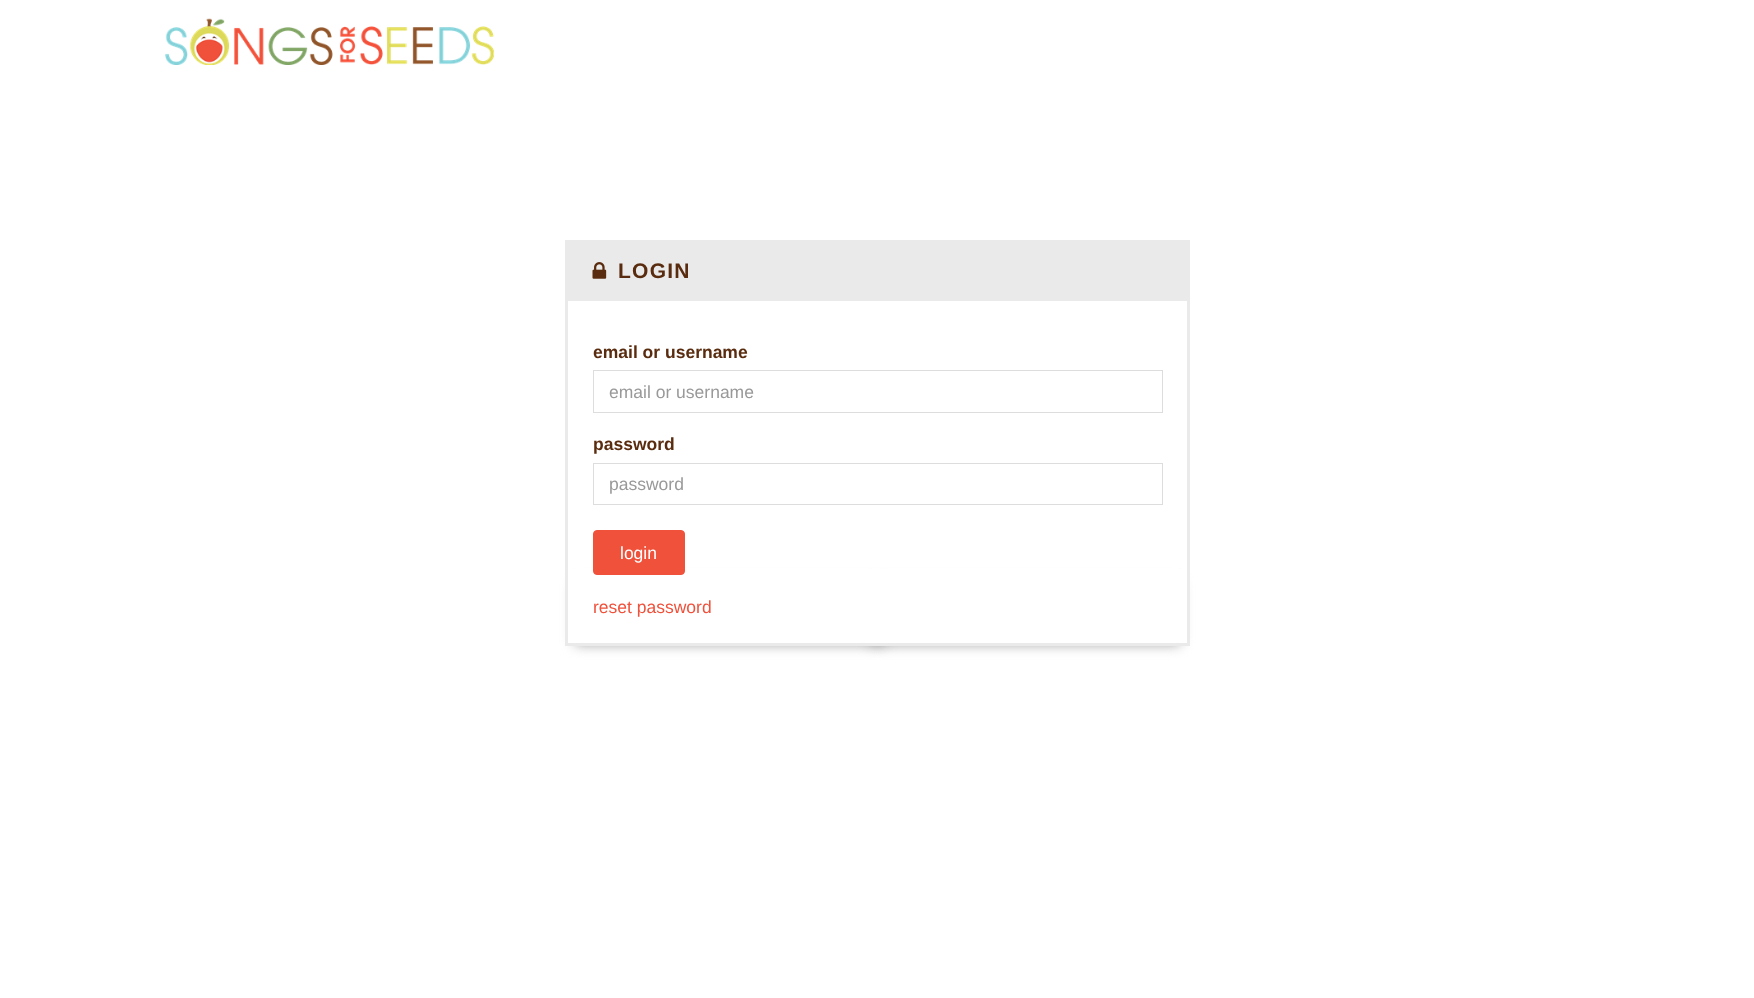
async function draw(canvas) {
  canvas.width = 1754;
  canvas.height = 998;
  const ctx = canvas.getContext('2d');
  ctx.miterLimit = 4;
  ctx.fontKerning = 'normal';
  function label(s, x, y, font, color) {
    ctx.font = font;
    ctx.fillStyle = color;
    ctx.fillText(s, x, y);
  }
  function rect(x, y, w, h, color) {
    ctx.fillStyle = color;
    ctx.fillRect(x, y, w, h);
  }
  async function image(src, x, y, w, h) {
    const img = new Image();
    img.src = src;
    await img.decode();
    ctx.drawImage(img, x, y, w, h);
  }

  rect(0, 0, 1754, 998, '#fff');
  await image('assets/img1.png', 165, 18, 329, 47);
  ctx.fillStyle = '#999';
  ctx.filter = 'blur(6.5px)';
  ctx.beginPath();
  ctx.rect(575, 583, 310, 61);
  ctx.fill();
  ctx.filter = 'none';
  ctx.filter = 'blur(6.5px)';
  ctx.beginPath();
  ctx.rect(870, 583, 310, 61);
  ctx.fill();
  ctx.filter = 'none';
  rect(568, 569, 619, 74, '#fff');
  ctx.strokeStyle = '#eaeaea';
  ctx.lineWidth = 3;
  ctx.strokeRect(566.5, 241.5, 622, 403);
  rect(568, 243, 619, 58, '#eaeaea');
  await image('assets/img2.png', 592, 262, 15, 17);
  ctx.letterSpacing = '1.25px';
  label('LOGIN', 618, 278, 'bold 21px Liberation Sans', '#5a2c0f');
  ctx.letterSpacing = '0px';
  label('email or username', 593, 358, 'bold 17.5px Liberation Sans', '#5a2c0f');
  ctx.strokeStyle = '#ddd';
  ctx.lineWidth = 1;
  ctx.strokeRect(593.5, 370.5, 569, 42);
  label('email or username', 609, 398, '17.5px Liberation Sans', '#999');
  label('password', 593, 450, 'bold 17.5px Liberation Sans', '#5a2c0f');
  ctx.strokeRect(593.5, 463.5, 569, 41);
  label('password', 609, 490, '17.5px Liberation Sans', '#999');
  ctx.fillStyle = '#ef513b';
  ctx.beginPath();
  ctx.roundRect(593.5, 530.5, 91, 44, 3.5);
  ctx.fill();
  ctx.strokeStyle = '#ef513b';
  ctx.stroke();
  label('login', 620, 559, '17.5px Liberation Sans', '#fff');
  label('reset password', 593, 613, '17.5px Liberation Sans', '#ef513b');
}

draw(document.querySelector('canvas'));
